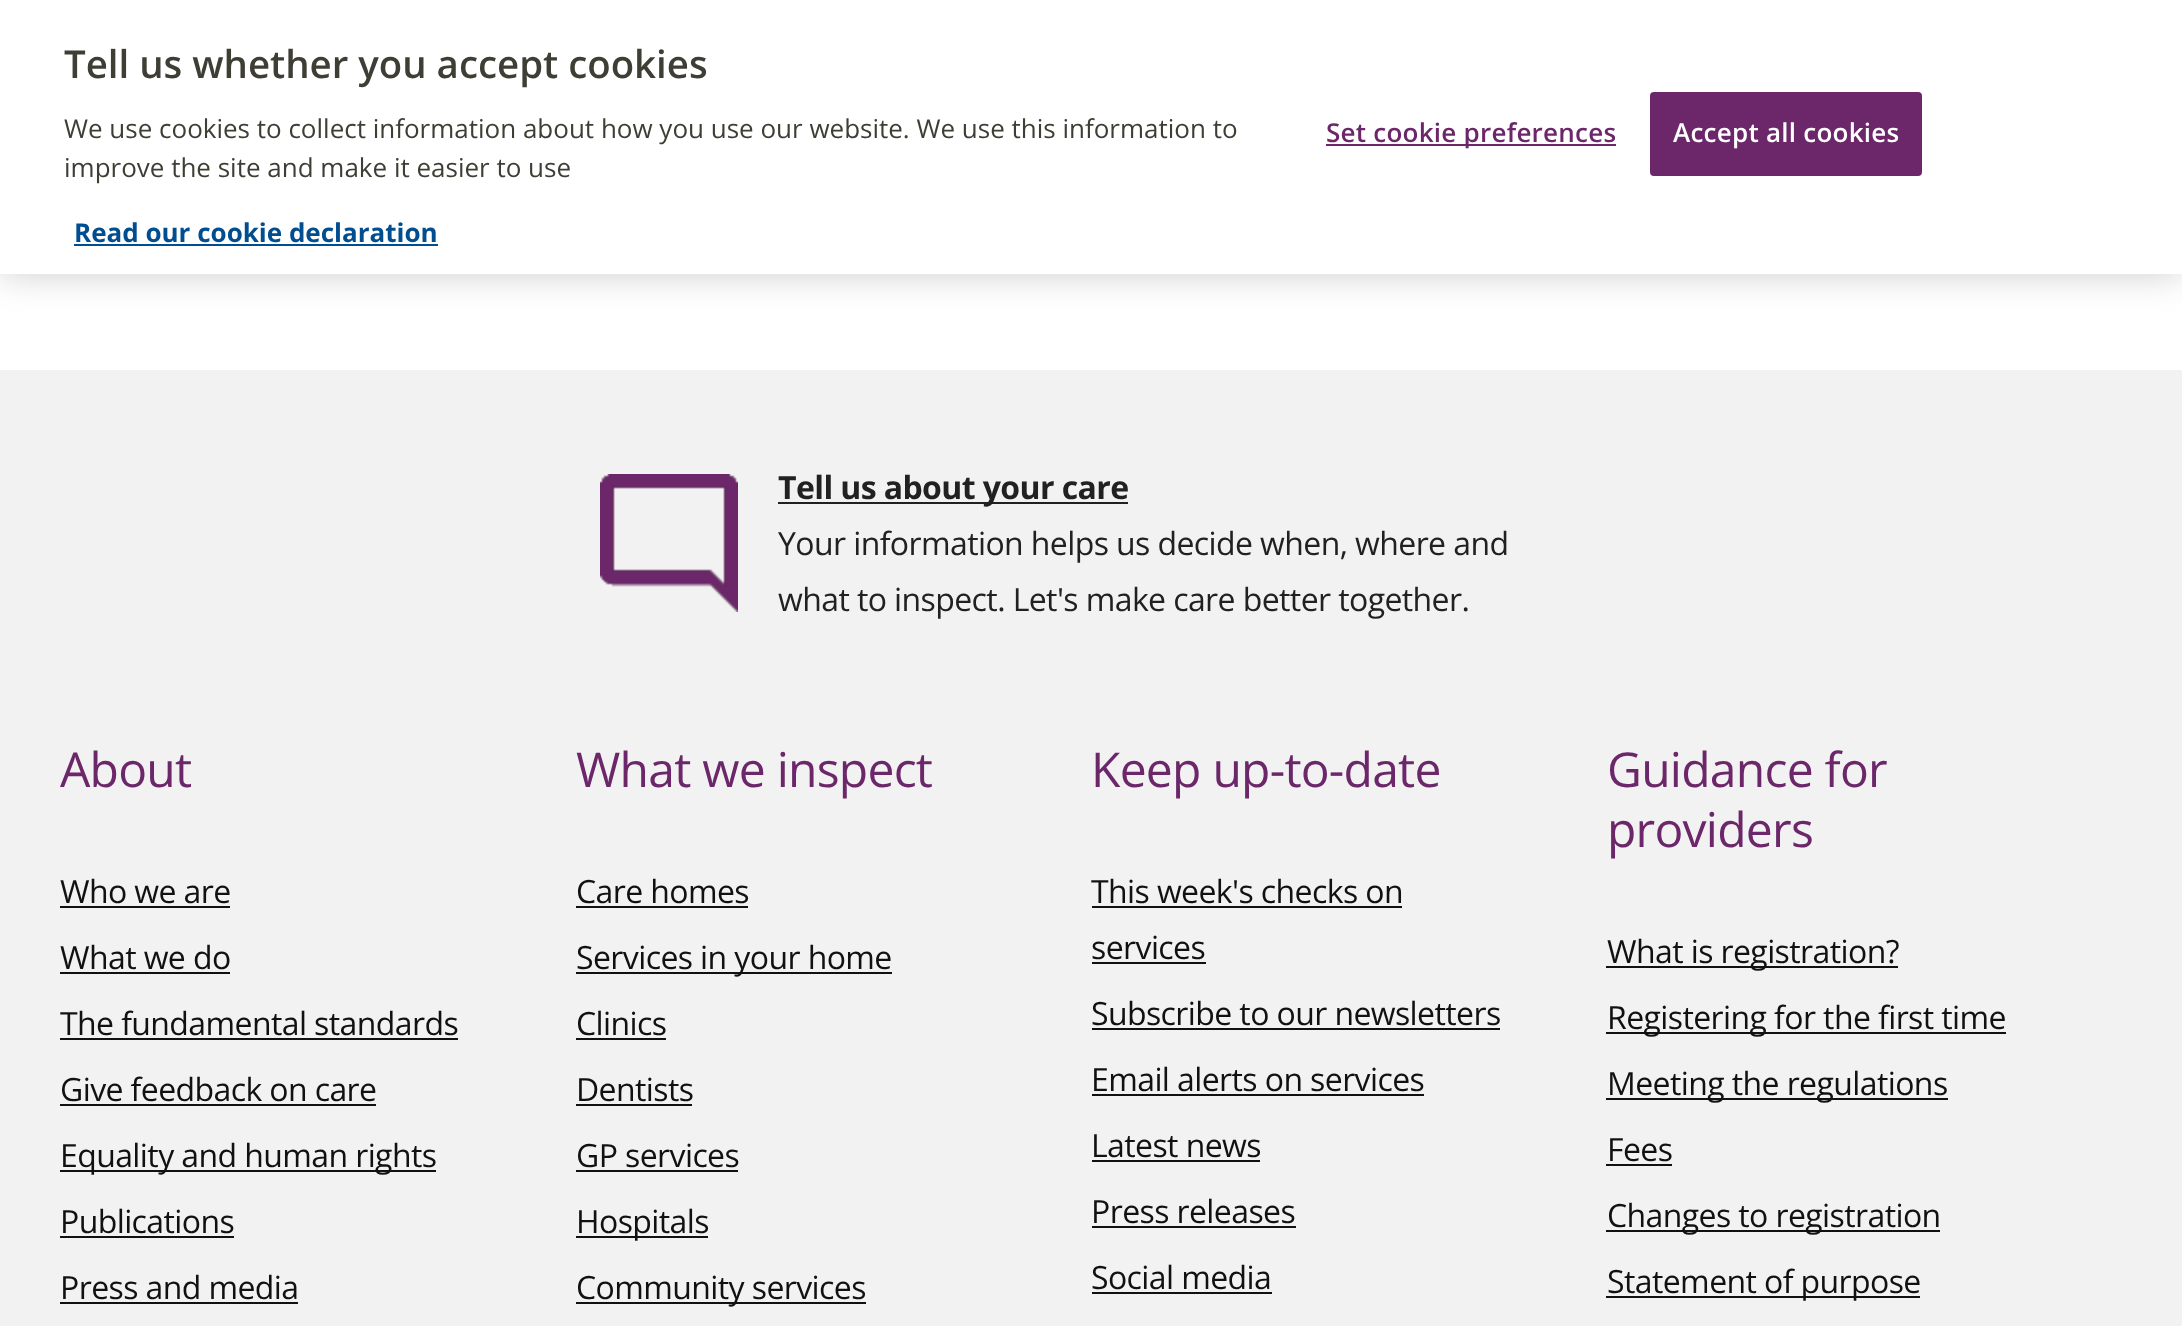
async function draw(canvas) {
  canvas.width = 2182;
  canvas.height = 1326;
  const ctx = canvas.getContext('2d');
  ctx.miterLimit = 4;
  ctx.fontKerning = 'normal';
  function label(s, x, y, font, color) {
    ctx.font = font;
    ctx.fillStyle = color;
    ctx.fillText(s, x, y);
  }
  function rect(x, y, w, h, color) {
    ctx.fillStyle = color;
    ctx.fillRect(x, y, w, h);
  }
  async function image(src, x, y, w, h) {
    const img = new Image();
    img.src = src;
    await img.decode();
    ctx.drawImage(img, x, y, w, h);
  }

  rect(0, 0, 2182, 1326, '#fff');
  ctx.fillStyle = '#00000033';
  ctx.filter = 'blur(18px)';
  ctx.beginPath();
  ctx.rect(0, 0, 2182, 274);
  ctx.fill();
  ctx.filter = 'none';
  rect(0, 0, 2182, 274, '#fff');
  label('Tell us whether you accept cookies', 64, 78, '600 38.4px Open Sans', '#3e3e35');
  label('We use cookies to collect information about how you use our website. We use this information to', 64, 138, '26px Open Sans', '#3e3e35');
  label('improve the site and make it easier to use', 64, 177, '26px Open Sans', '#3e3e35');
  label('Read our cookie declaration', 74, 242, 'bold 26px Open Sans', '#004d90');
  rect(74, 244, 364, 2, '#004d90');
  rect(1326, 144, 290, 2, '#6c276a');
  ctx.letterSpacing = '0.25px';
  label('Set cookie preferences', 1326, 142, '600 26px Open Sans', '#6c276a');
  ctx.beginPath();
  ctx.roundRect(1651, 93, 270, 82, 3);
  ctx.fill();
  ctx.strokeStyle = '#6c276a';
  ctx.lineWidth = 2;
  ctx.stroke();
  label('Accept all cookies', 1673, 142, '600 26px Open Sans', '#fff');
  rect(0, 370, 2182, 956, '#f2f2f2');
  await image('assets/img1.png', 600, 474, 138, 138);
  rect(778, 502, 350, 2, '#212121');
  ctx.letterSpacing = '-0.6px';
  label('Tell us about your care', 778, 499, 'bold 32px Open Sans', '#212121');
  label('Your information helps us decide when, where and', 778, 555, '32px Open Sans', '#212121');
  label('what to inspect. Let\'s make care better together.', 778, 611, '32px Open Sans', '#212121');
  ctx.letterSpacing = '-0.75px';
  label('About', 60, 787, '48px Open Sans', '#6c276a');
  ctx.letterSpacing = '-0.6px';
  label('Who we are', 60, 903, '32px Open Sans', '#111');
  rect(60, 906, 170, 2, '#111');
  label('What we do', 60, 969, '32px Open Sans', '#111');
  rect(60, 972, 170, 2, '#111');
  label('The fundamental standards', 60, 1035, '32px Open Sans', '#111');
  rect(60, 1038, 398, 2, '#111');
  label('Give feedback on care', 60, 1101, '32px Open Sans', '#111');
  rect(60, 1104, 316, 2, '#111');
  rect(60, 1170, 376, 2, '#111');
  label('Equality and human rights', 60, 1167, '32px Open Sans', '#111');
  label('Publications', 60, 1233, '32px Open Sans', '#111');
  rect(60, 1236, 174, 2, '#111');
  label('Press and media', 60, 1299, '32px Open Sans', '#111');
  rect(60, 1302, 238, 2, '#111');
  ctx.letterSpacing = '-0.75px';
  label('What we inspect', 576, 787, '48px Open Sans', '#6c276a');
  ctx.letterSpacing = '-0.6px';
  label('Care homes', 576, 903, '32px Open Sans', '#111');
  rect(576, 906, 172, 2, '#111');
  rect(576, 972, 316, 2, '#111');
  label('Services in your home', 576, 969, '32px Open Sans', '#111');
  label('Clinics', 576, 1035, '32px Open Sans', '#111');
  rect(576, 1038, 90, 2, '#111');
  label('Dentists', 576, 1101, '32px Open Sans', '#111');
  rect(576, 1104, 116, 2, '#111');
  label('GP services', 576, 1167, '32px Open Sans', '#111');
  rect(576, 1170, 162, 2, '#111');
  rect(576, 1236, 132, 2, '#111');
  label('Hospitals', 576, 1233, '32px Open Sans', '#111');
  rect(576, 1302, 290, 2, '#111');
  label('Community services', 576, 1299, '32px Open Sans', '#111');
  ctx.letterSpacing = '-0.75px';
  label('Keep up-to-date', 1091, 787, '48px Open Sans', '#6c276a');
  ctx.letterSpacing = '-0.6px';
  label('This week\'s checks on', 1091, 903, '32px Open Sans', '#111');
  rect(1092, 906, 310, 2, '#111');
  label('services', 1091, 959, '32px Open Sans', '#111');
  rect(1092, 962, 114, 2, '#111');
  label('Subscribe to our newsletters', 1091, 1025, '32px Open Sans', '#111');
  rect(1092, 1028, 408, 2, '#111');
  label('Email alerts on services', 1091, 1091, '32px Open Sans', '#111');
  rect(1092, 1094, 332, 2, '#111');
  label('Latest news', 1091, 1157, '32px Open Sans', '#111');
  rect(1092, 1160, 168, 2, '#111');
  label('Press releases', 1091, 1223, '32px Open Sans', '#111');
  rect(1092, 1226, 204, 2, '#111');
  label('Social media', 1091, 1289, '32px Open Sans', '#111');
  rect(1092, 1292, 180, 2, '#111');
  ctx.letterSpacing = '-0.75px';
  label('Guidance for', 1607, 787, '48px Open Sans', '#6c276a');
  label('providers', 1607, 847, '48px Open Sans', '#6c276a');
  rect(1606, 966, 292, 2, '#111');
  ctx.letterSpacing = '-0.6px';
  label('What is registration?', 1607, 963, '32px Open Sans', '#111');
  rect(1606, 1032, 400, 2, '#111');
  label('Registering for the first time', 1607, 1029, '32px Open Sans', '#111');
  rect(1606, 1098, 342, 2, '#111');
  label('Meeting the regulations', 1607, 1095, '32px Open Sans', '#111');
  label('Fees', 1607, 1161, '32px Open Sans', '#111');
  rect(1606, 1164, 66, 2, '#111');
  rect(1606, 1230, 334, 2, '#111');
  label('Changes to registration', 1607, 1227, '32px Open Sans', '#111');
  rect(1606, 1296, 314, 2, '#111');
  label('Statement of purpose', 1607, 1293, '32px Open Sans', '#111');
}

draw(document.querySelector('canvas'));
